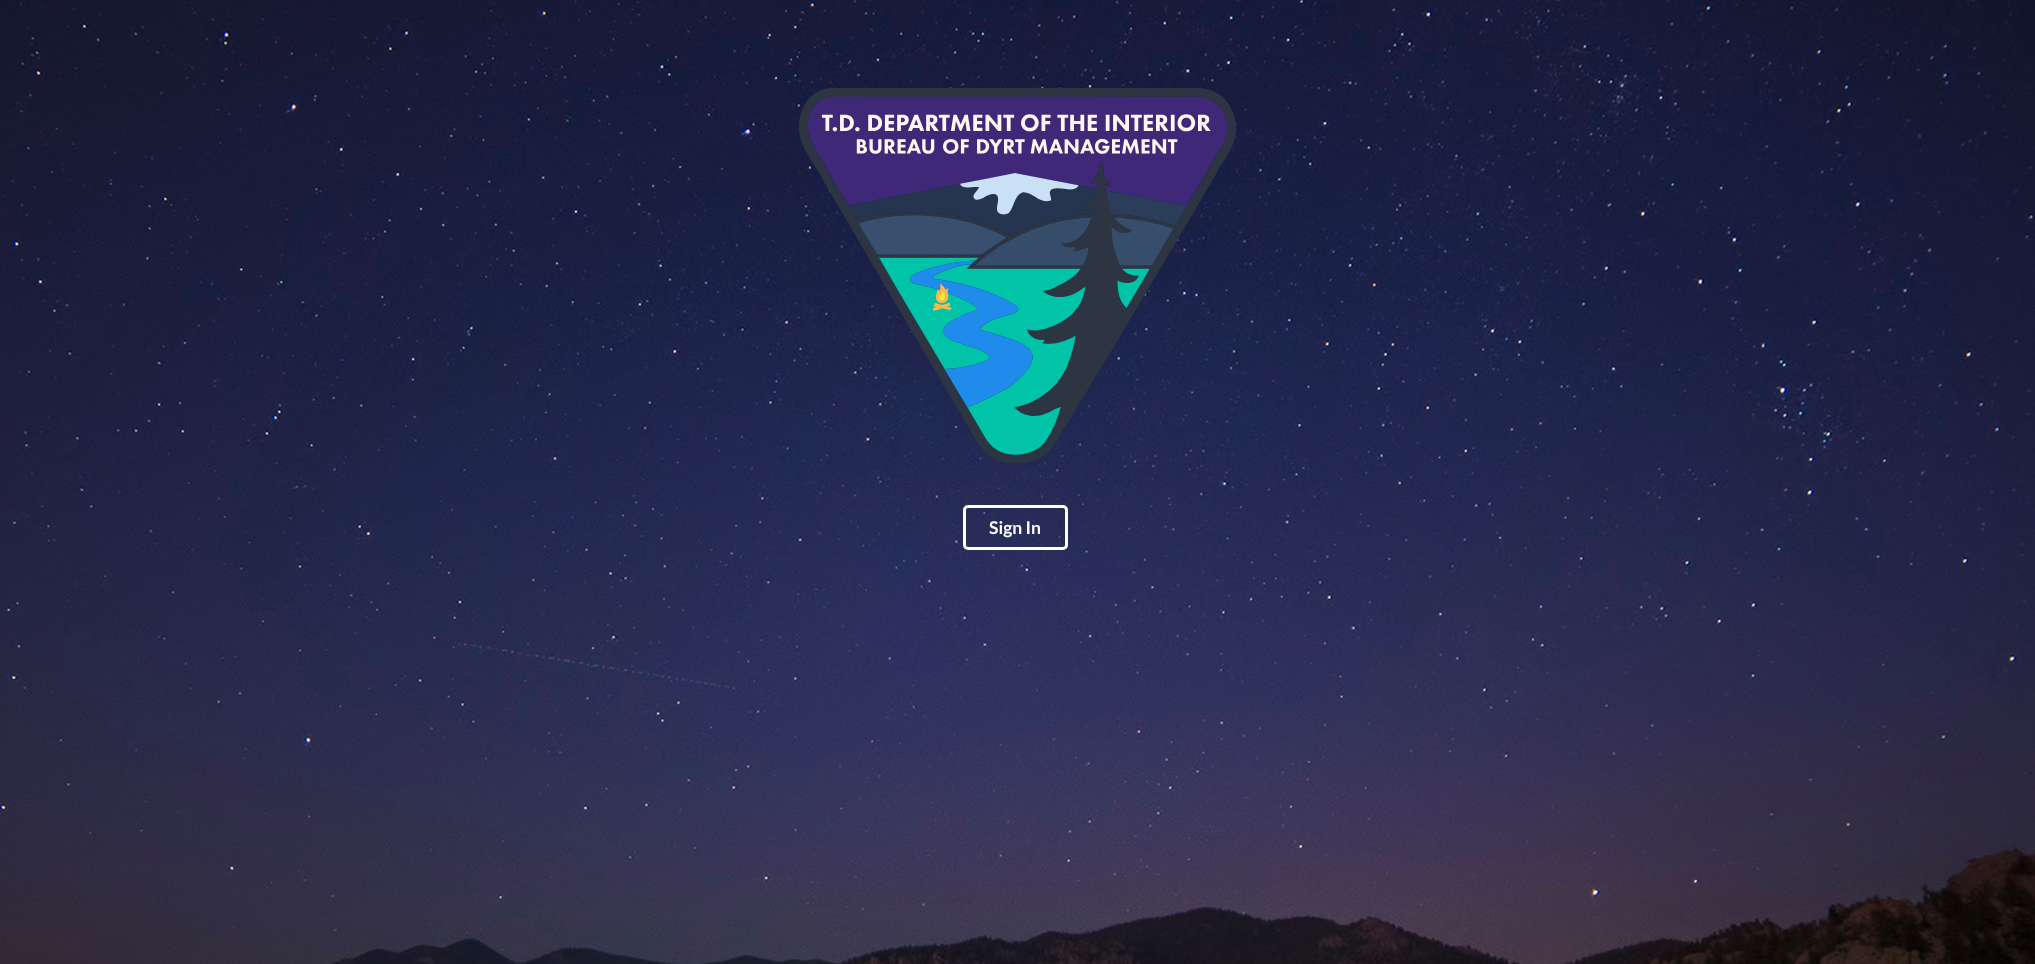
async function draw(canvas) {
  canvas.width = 2035;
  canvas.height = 964;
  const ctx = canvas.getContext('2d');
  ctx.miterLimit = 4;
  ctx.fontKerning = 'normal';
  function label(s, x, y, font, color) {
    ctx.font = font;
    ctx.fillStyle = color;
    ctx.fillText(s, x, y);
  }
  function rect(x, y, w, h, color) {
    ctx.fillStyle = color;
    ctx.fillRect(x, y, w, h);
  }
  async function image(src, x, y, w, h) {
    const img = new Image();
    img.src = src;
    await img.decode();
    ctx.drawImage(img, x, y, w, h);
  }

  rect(0, 0, 2035, 964, '#fff');
  await image('assets/img1.png', 0, 0, 2035, 964);
  await image('assets/img2.png', 799, 88, 437, 376);
  ctx.beginPath();
  ctx.roundRect(964.5, 506.5, 102, 42, 3.5);
  ctx.strokeStyle = '#fff';
  ctx.lineWidth = 3;
  ctx.stroke();
  label('Sign In', 989, 534, 'bold 17.5px Lato', '#fff');
}

draw(document.querySelector('canvas'));
